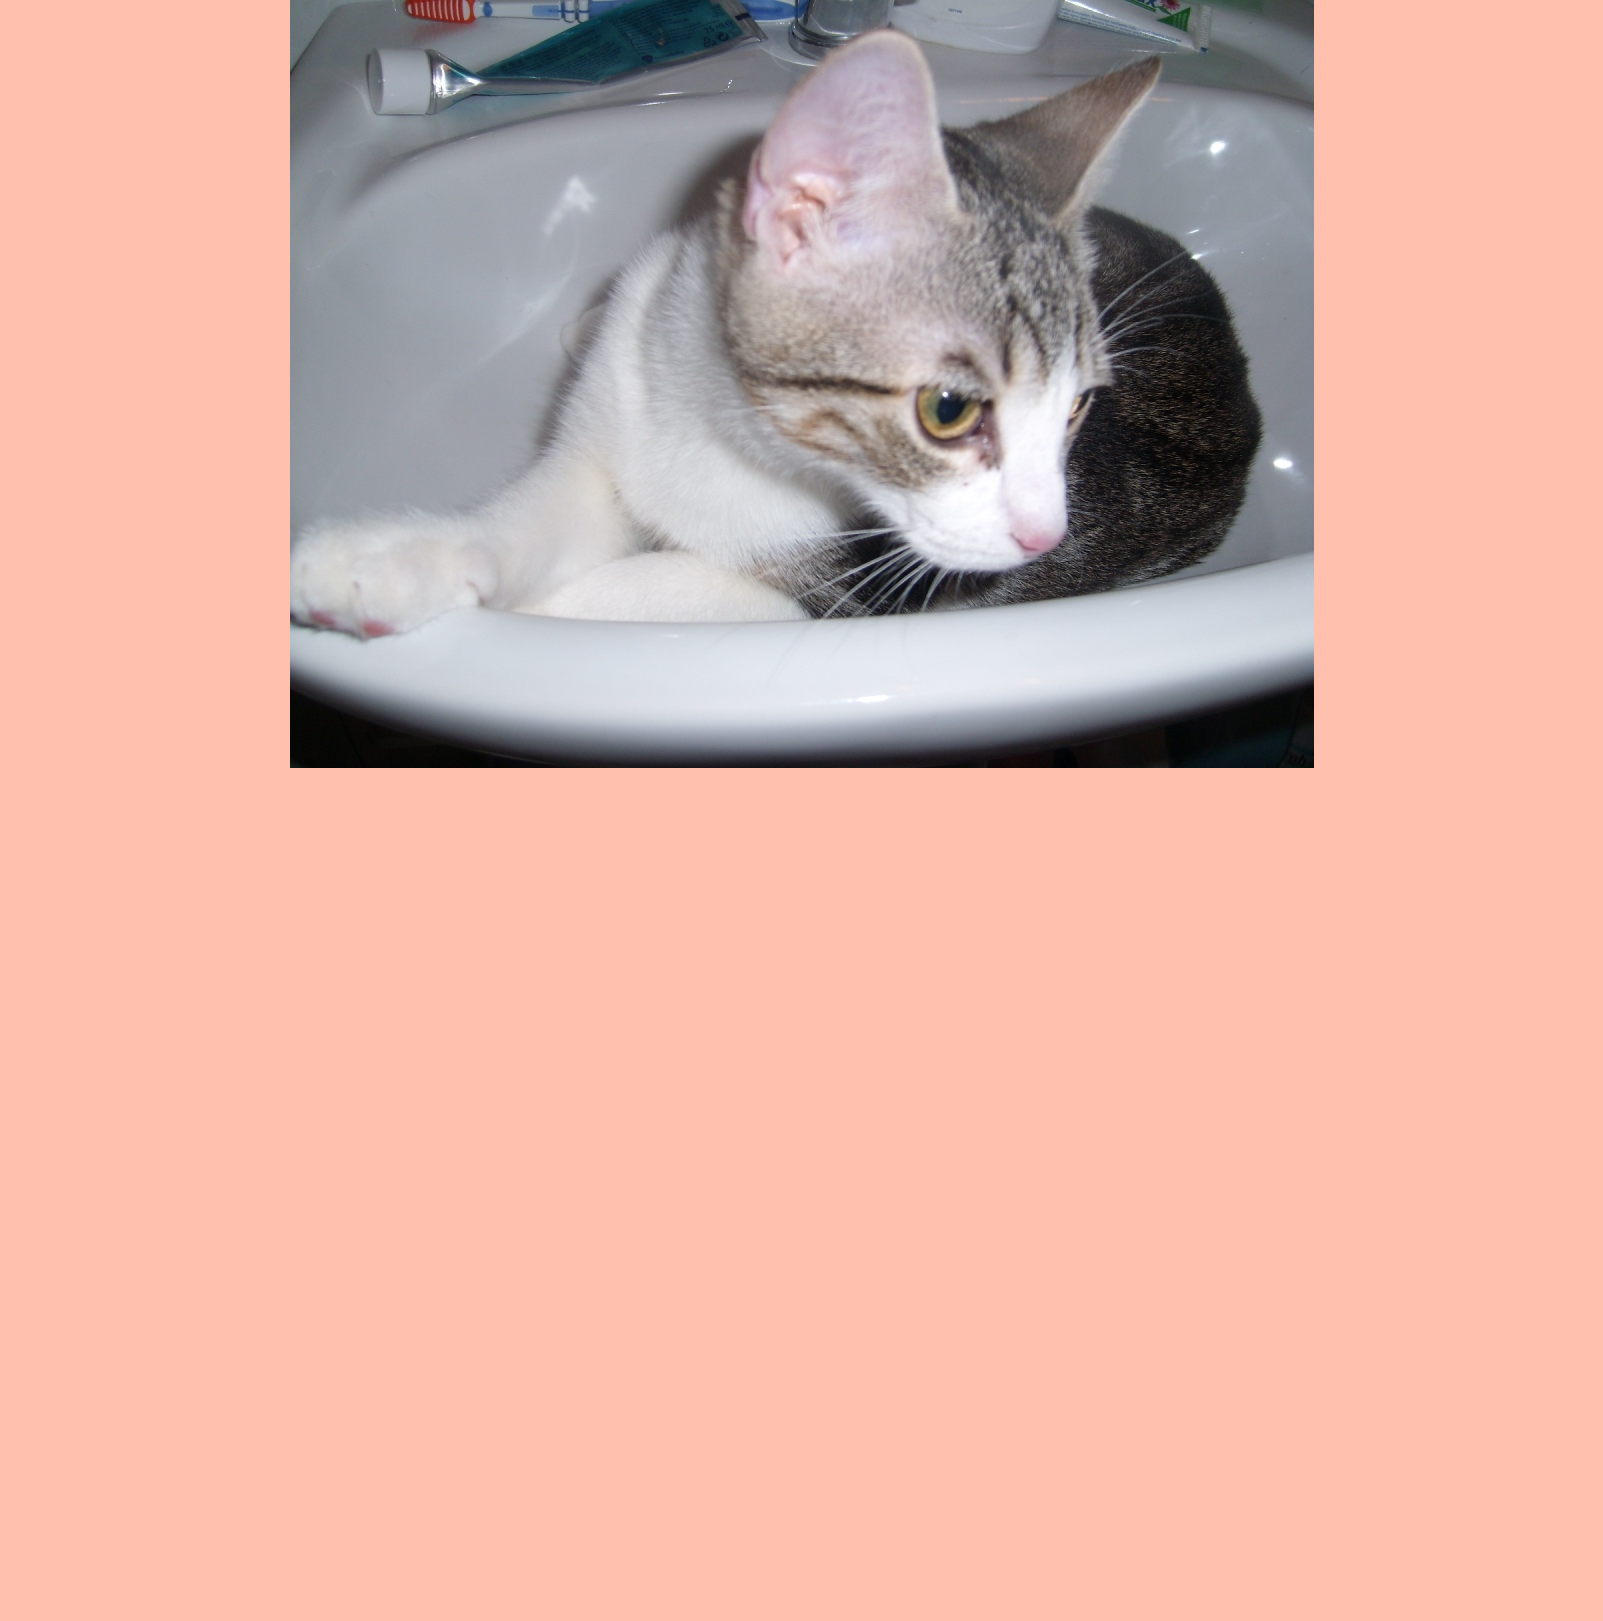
async function draw(canvas) {
  canvas.width = 1603;
  canvas.height = 1621;
  const ctx = canvas.getContext('2d');
  ctx.miterLimit = 4;
  ctx.fontKerning = 'normal';
  function rect(x, y, w, h, color) {
    ctx.fillStyle = color;
    ctx.fillRect(x, y, w, h);
  }
  async function image(src, x, y, w, h) {
    const img = new Image();
    img.src = src;
    await img.decode();
    ctx.drawImage(img, x, y, w, h);
  }

  rect(0, 0, 1603, 1621, '#ffc1ae');
  await image('assets/img1.png', 290, 0, 1024, 768);
}

draw(document.querySelector('canvas'));
